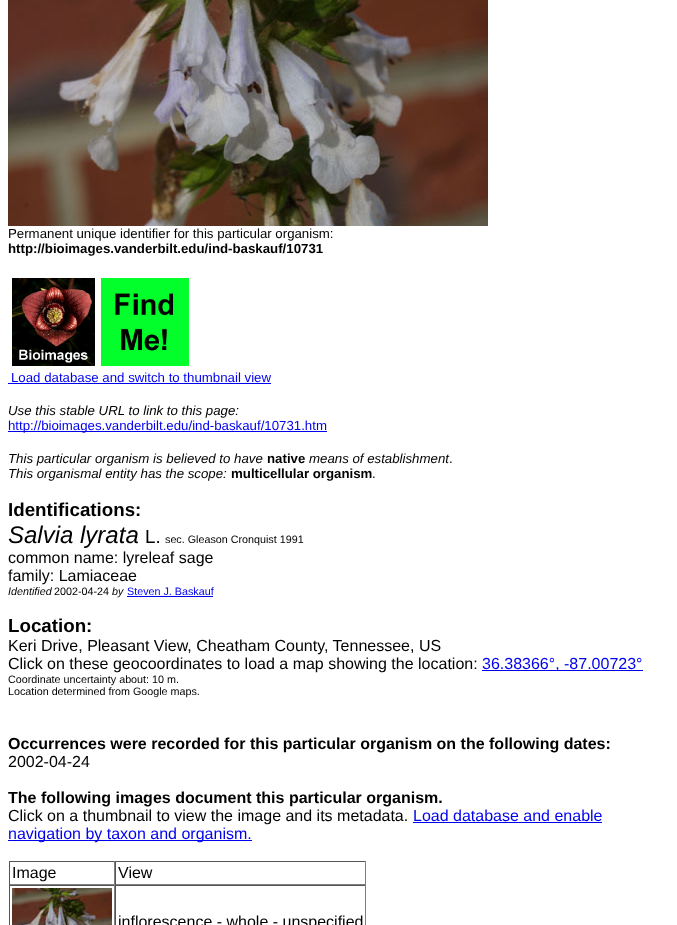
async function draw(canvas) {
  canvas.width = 677;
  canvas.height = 925;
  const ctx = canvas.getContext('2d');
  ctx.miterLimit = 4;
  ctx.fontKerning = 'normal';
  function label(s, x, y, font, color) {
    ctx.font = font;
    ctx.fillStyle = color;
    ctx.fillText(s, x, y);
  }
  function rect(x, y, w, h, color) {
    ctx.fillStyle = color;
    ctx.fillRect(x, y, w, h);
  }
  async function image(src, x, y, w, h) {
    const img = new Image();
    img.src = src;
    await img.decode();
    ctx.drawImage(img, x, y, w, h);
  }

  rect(0, 0, 677, 925, '#fff');
  await image('assets/img1.png', 8, 0, 480, 226);
  label('Permanent unique identifier for this particular organism:', 8, 238, '13.25px Liberation Sans', '#000');
  label('http://bioimages.vanderbilt.edu/ind-baskauf/10731', 8, 253, 'bold 13.25px Liberation Sans', '#000');
  await image('assets/img2.png', 12, 278, 83, 88);
  await image('assets/img3.png', 101, 278, 88, 88);
  label('Load database and switch to thumbnail view', 11, 382, '13.25px Liberation Sans', '#00e');
  rect(8, 383, 263, 1, '#00e');
  label('Use this stable URL to link to this page:', 8, 415, 'italic 13.25px Liberation Sans', '#000');
  rect(8, 431, 319, 1, '#00e');
  label('http://bioimages.vanderbilt.edu/ind-baskauf/10731.htm', 8, 430, '13.25px Liberation Sans', '#00e');
  label('This particular organism is believed to have', 8, 463, 'italic 13.25px Liberation Sans', '#000');
  label('native', 267, 463, 'bold 13.25px Liberation Sans', '#000');
  label('means of establishment', 309, 463, 'italic 13.25px Liberation Sans', '#000');
  label('.', 449, 463, '13.25px Liberation Sans', '#000');
  label('This organismal entity has the scope:', 8, 478, 'italic 13.25px Liberation Sans', '#000');
  label('multicellular organism', 231, 478, 'bold 13.25px Liberation Sans', '#000');
  label('.', 372, 478, '13.25px Liberation Sans', '#000');
  label('Identifications:', 8, 516, 'bold 18.75px Liberation Sans', '#000');
  label('Salvia lyrata', 8, 543, 'italic 24px Liberation Sans', '#000');
  label('L.', 145, 543, '18.75px Liberation Sans', '#000');
  label('sec. Gleason Cronquist 1991', 165, 543, '10.75px Liberation Sans', '#000');
  label('common name: lyreleaf sage', 8, 563, '16px Liberation Sans', '#000');
  label('family: Lamiaceae', 8, 581, '16px Liberation Sans', '#000');
  label('Identified', 8, 595, 'italic 10.75px Liberation Sans', '#000');
  label('2002-04-24', 54, 595, '10.75px Liberation Sans', '#000');
  label('by', 112, 595, 'italic 10.75px Liberation Sans', '#000');
  rect(127, 596, 86, 1, '#00e');
  label('Steven J. Baskauf', 127, 595, '10.75px Liberation Sans', '#00e');
  label('Location:', 8, 632, 'bold 18.75px Liberation Sans', '#000');
  label('Keri Drive, Pleasant View, Cheatham County, Tennessee, US', 8, 651, '16px Liberation Sans', '#000');
  label('Click on these geocoordinates to load a map showing the location:', 8, 669, '16px Liberation Sans', '#000');
  rect(482, 670, 161, 1, '#00e');
  label('36.38366°, -87.00723°', 482, 669, '16px Liberation Sans', '#00e');
  label('Coordinate uncertainty about: 10 m.', 8, 683, '10.75px Liberation Sans', '#000');
  label('Location determined from Google maps.', 8, 695, '10.75px Liberation Sans', '#000');
  label('Occurrences were recorded for this particular organism on the following dates:', 8, 749, 'bold 16px Liberation Sans', '#000');
  label('2002-04-24', 8, 767, '16px Liberation Sans', '#000');
  label('The following images document this particular organism.', 8, 803, 'bold 16px Liberation Sans', '#000');
  label('Click on a thumbnail to view the image and its metadata.', 8, 821, '16px Liberation Sans', '#000');
  label('Load database and enable', 413, 821, '16px Liberation Sans', '#00e');
  rect(413, 822, 189, 1, '#00e');
  rect(8, 840, 244, 1, '#00e');
  label('navigation by taxon and organism.', 8, 839, '16px Liberation Sans', '#00e');
  rect(9, 861, 357, 1, '#555');
  rect(114, 861, 1, 24, '#808080');
  rect(9, 884, 106, 1, '#808080');
  rect(9, 861, 1, 24, '#555');
  label('Image', 12, 878, '16px Liberation Sans', '#000');
  rect(365, 861, 1, 24, '#808080');
  rect(115, 884, 251, 1, '#808080');
  rect(115, 861, 1, 24, '#555');
  label('View', 118, 878, '16px Liberation Sans', '#000');
  rect(9, 885, 357, 1, '#555');
  rect(114, 885, 1, 40, '#808080');
  rect(9, 885, 1, 40, '#555');
  await image('assets/img4.png', 12, 888, 100, 37);
  rect(365, 885, 1, 40, '#808080');
  rect(115, 885, 1, 40, '#555');
  label('inflorescence - whole - unspecified', 118, 927, '16px Liberation Sans', '#000');
}

draw(document.querySelector('canvas'));
